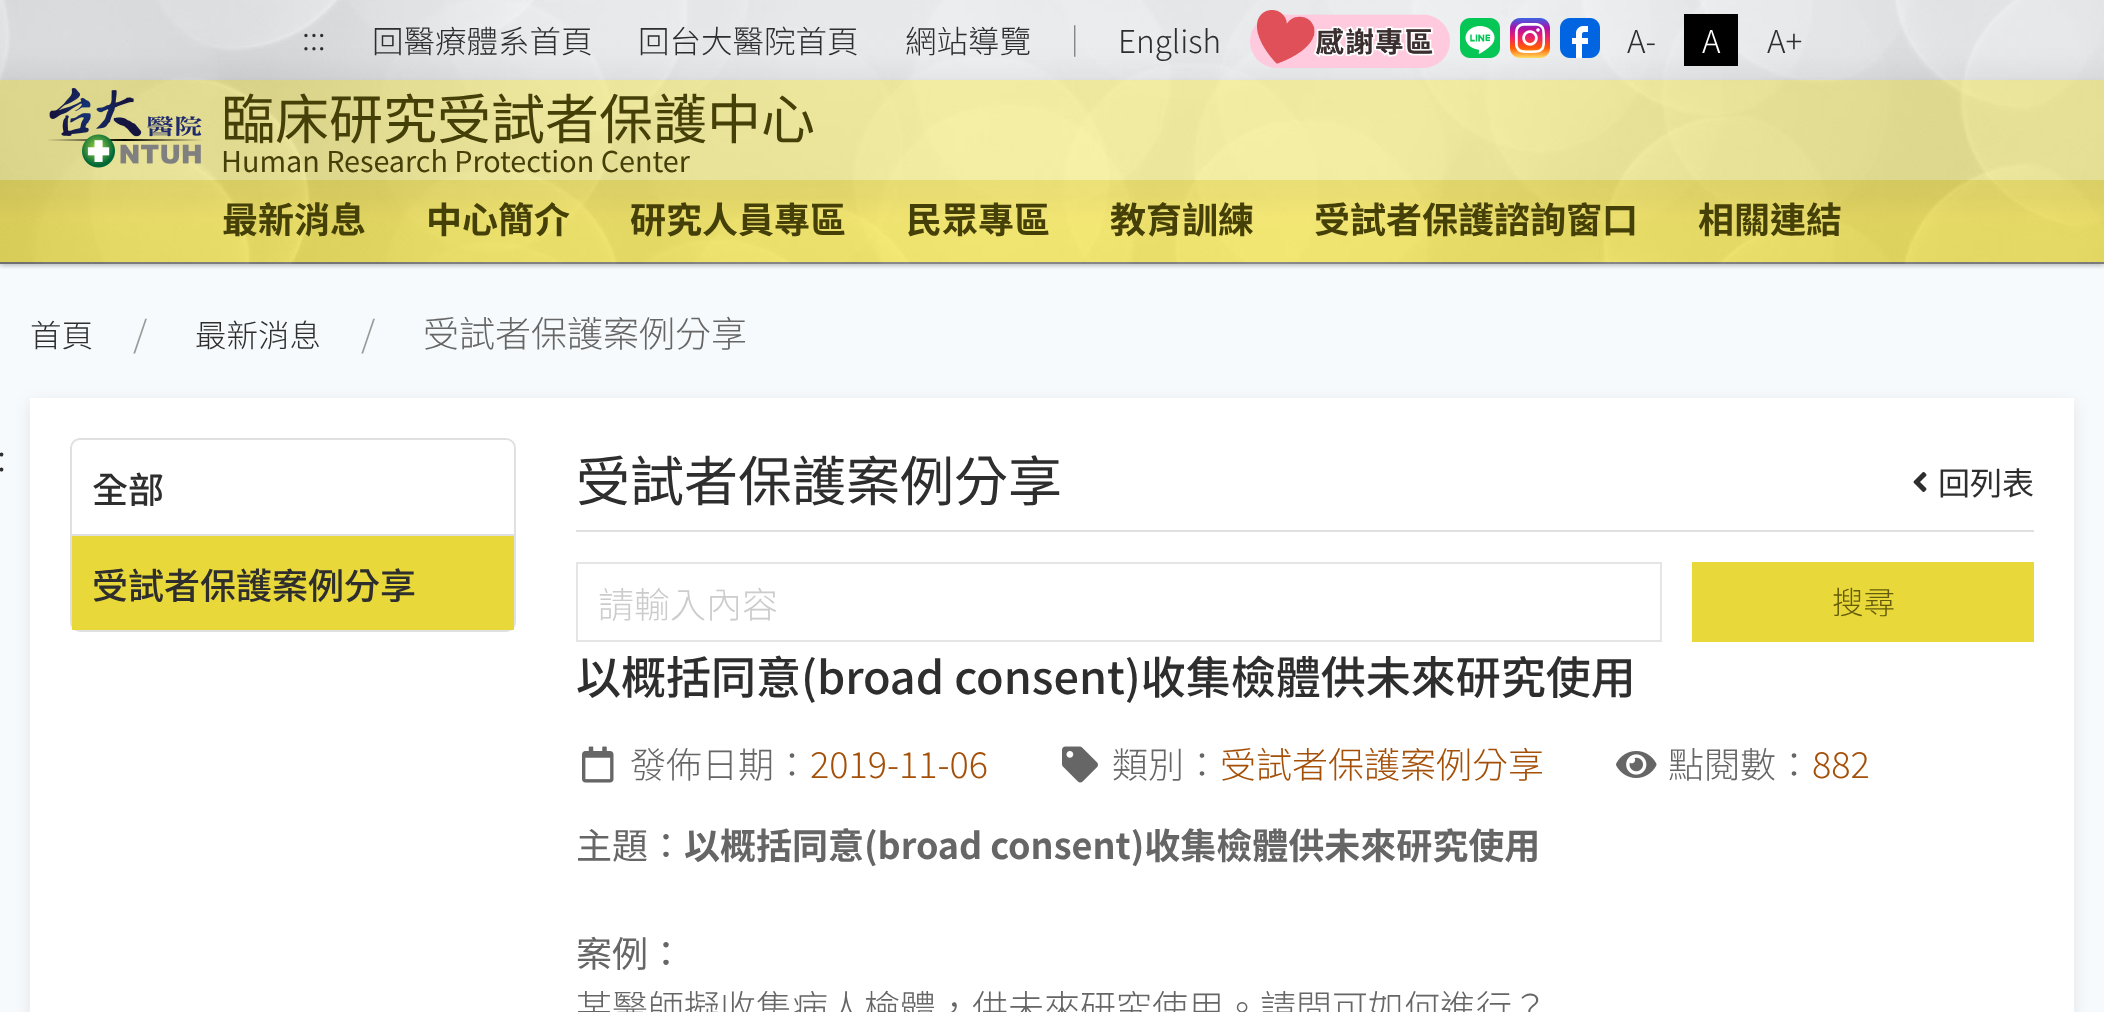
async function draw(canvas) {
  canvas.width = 2104;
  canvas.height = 1012;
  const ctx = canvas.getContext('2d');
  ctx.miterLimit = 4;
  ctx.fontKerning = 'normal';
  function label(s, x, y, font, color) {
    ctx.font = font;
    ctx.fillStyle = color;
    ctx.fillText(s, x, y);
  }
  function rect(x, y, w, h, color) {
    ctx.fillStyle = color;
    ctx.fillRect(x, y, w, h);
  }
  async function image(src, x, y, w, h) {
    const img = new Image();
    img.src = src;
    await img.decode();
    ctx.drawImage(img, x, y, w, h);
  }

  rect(0, 0, 2104, 1012, '#f7fafc');
  ctx.save();
  ctx.beginPath();
  ctx.rect(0, 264, 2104, 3);
  ctx.clip();
  ctx.fillStyle = '#0000000f';
  ctx.filter = 'blur(2px)';
  ctx.beginPath();
  ctx.rect(0, 2, 2104, 264);
  ctx.fill();
  ctx.filter = 'none';
  ctx.restore();
  ctx.save();
  ctx.beginPath();
  ctx.rect(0, 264, 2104, 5);
  ctx.clip();
  ctx.fillStyle = '#0000001a';
  ctx.filter = 'blur(3px)';
  ctx.beginPath();
  ctx.rect(0, 2, 2104, 264);
  ctx.fill();
  ctx.filter = 'none';
  ctx.restore();
  ctx.fillStyle = '#0000000f';
  ctx.filter = 'blur(2px)';
  ctx.beginPath();
  ctx.rect(0, 82, 2104, 182);
  ctx.fill();
  ctx.filter = 'none';
  ctx.fillStyle = '#0000001a';
  ctx.filter = 'blur(3px)';
  ctx.beginPath();
  ctx.rect(0, 82, 2104, 182);
  ctx.fill();
  ctx.filter = 'none';
  rect(0, 180, 2104, 82, '#ffe600');
  ctx.fillStyle = '#00000014';
  ctx.filter = 'blur(10px)';
  ctx.beginPath();
  ctx.rect(-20, 66, 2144, 140);
  ctx.fill();
  ctx.filter = 'none';
  rect(0, 80, 2104, 100, '#fff05f');
  rect(0, 262, 2104, 2, '#000000cc');
  await image('assets/img5.png', 0, 0, 2104, 264);
  label(':::', 302, 50, '300 31.5px Noto Sans TC', '#2e2e2e');
  label('回醫療體系首頁', 372, 53, '300 31.5px Noto Sans TC', '#2e2e2e');
  label('回台大醫院首頁', 638, 53, '300 31.5px Noto Sans TC', '#2e2e2e');
  label('網站導覽', 905, 53, '300 31.5px Noto Sans TC', '#2e2e2e');
  label('｜', 1059, 53, '300 31.5px Noto Sans TC', '#757575');
  label('English', 1118, 53, '300 31.5px Noto Sans TC', '#2e2e2e');
  await image('assets/img1.png', 1250, 10, 200, 58);
  await image('assets/img2.png', 1460, 18, 40, 40);
  await image('assets/img3.png', 1510, 18, 40, 40);
  await image('assets/img4.png', 1560, 18, 40, 40);
  label('A-', 1627, 53, '300 31.5px Noto Sans TC', '#2e2e2e');
  rect(1684, 14, 54, 52, '#000');
  label('A', 1702, 53, '300 31.5px Noto Sans TC', '#fff');
  label('A+', 1767, 53, '300 31.5px Noto Sans TC', '#2e2e2e');
  await image('assets/img6.png', 48, 88, 154, 80);
  label('臨床研究受試者保護中心', 221, 139, '54px Noto Sans TC', '#453f08');
  label('Human Research Protection Center', 221, 172, '28.75px Noto Sans TC', '#453f08');
  label('最新消息', 222, 233, 'bold 36px Noto Sans TC', '#453f08');
  label('中心簡介', 426, 233, 'bold 36px Noto Sans TC', '#453f08');
  label('研究人員專區', 630, 233, 'bold 36px Noto Sans TC', '#453f08');
  label('民眾專區', 906, 233, 'bold 36px Noto Sans TC', '#453f08');
  label('教育訓練', 1110, 233, 'bold 36px Noto Sans TC', '#453f08');
  label('受試者保護諮詢窗口', 1314, 233, 'bold 36px Noto Sans TC', '#453f08');
  label('相關連結', 1698, 233, 'bold 36px Noto Sans TC', '#453f08');
  label('首頁', 30, 347, '300 31.5px Noto Sans TC', '#2e2e2e');
  label('/', 133, 347, '300 36px Noto Sans TC', '#999');
  label('最新消息', 195, 347, '300 31.5px Noto Sans TC', '#2e2e2e');
  label('/', 361, 347, '300 36px Noto Sans TC', '#999');
  label('受試者保護案例分享', 423, 347, '300 36px Noto Sans TC', '#666');
  label(':', -3, 471, '300 36px Noto Sans TC', '#2e2e2e');
  ctx.fillStyle = '#00000014';
  ctx.filter = 'blur(8px)';
  ctx.beginPath();
  ctx.rect(30, 402, 2044, 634);
  ctx.fill();
  ctx.filter = 'none';
  rect(30, 398, 2044, 614, '#fff');
  ctx.beginPath();
  ctx.roundRect(71, 439, 444, 96, [9, 9, 0, 0]);
  ctx.strokeStyle = '#e0e0e0';
  ctx.lineWidth = 2;
  ctx.stroke();
  label('全部', 92, 503, '500 36px Noto Sans TC', '#2e2e2e');
  ctx.beginPath();
  ctx.roundRect(71, 535, 444, 96, [0, 0, 9, 9]);
  ctx.stroke();
  rect(72, 536, 442, 94, '#e9d839');
  label('受試者保護案例分享', 92, 599, '500 36px Noto Sans TC', '#2e2e2e');
  rect(576, 530, 1458, 2, '#e0e0e0');
  label('受試者保護案例分享', 576, 501, '54px Noto Sans TC', '#2e2e2e');
  await image('assets/img7.png', 1913, 472, 14, 20);
  label('回列表', 1938, 495, '32px Noto Sans TC', '#2e2e2e');
  ctx.strokeStyle = '#e5e5e5';
  ctx.strokeRect(577, 563, 1084, 78);
  label('請輸入內容', 598, 618, '300 36px Noto Sans TC', '#ccc');
  rect(1692, 562, 342, 80, '#e9d839');
  label('搜尋', 1832, 614, '300 31.5px Noto Sans TC', '#655c0b');
  label('以概括同意(broad consent)收集檢體供未來研究使用', 576, 694, '500 45px Noto Sans TC', '#2e2e2e');
  await image('assets/img8.png', 582, 746, 32, 37);
  label('發佈日期：', 630, 778, '300 36px Noto Sans TC', '#666');
  label('2019-11-06', 810, 778, '300 36px Noto Sans TC', '#a45009');
  await image('assets/img9.png', 1062, 746, 36, 37);
  label('類別：', 1112, 778, '300 36px Noto Sans TC', '#666');
  label('受試者保護案例分享', 1220, 778, '300 36px Noto Sans TC', '#a45009');
  await image('assets/img10.png', 1616, 751, 41, 27);
  label('點閱數：', 1668, 778, '300 36px Noto Sans TC', '#666');
  label('882', 1812, 778, '300 36px Noto Sans TC', '#a45009');
  label('主題：', 576, 859, '36px Noto Sans TC', '#666');
  label('以概括同意(broad consent)收集檢體供未來研究使用', 684, 859, 'bold 36px Noto Sans TC', '#666');
  label('案例：', 576, 967, '36px Noto Sans TC', '#666');
  label('某醫師擬收集病人檢體，供未來研究使用。請問可如何進行？', 576, 1021, '300 36px Noto Sans TC', '#666');
}

draw(document.querySelector('canvas'));
